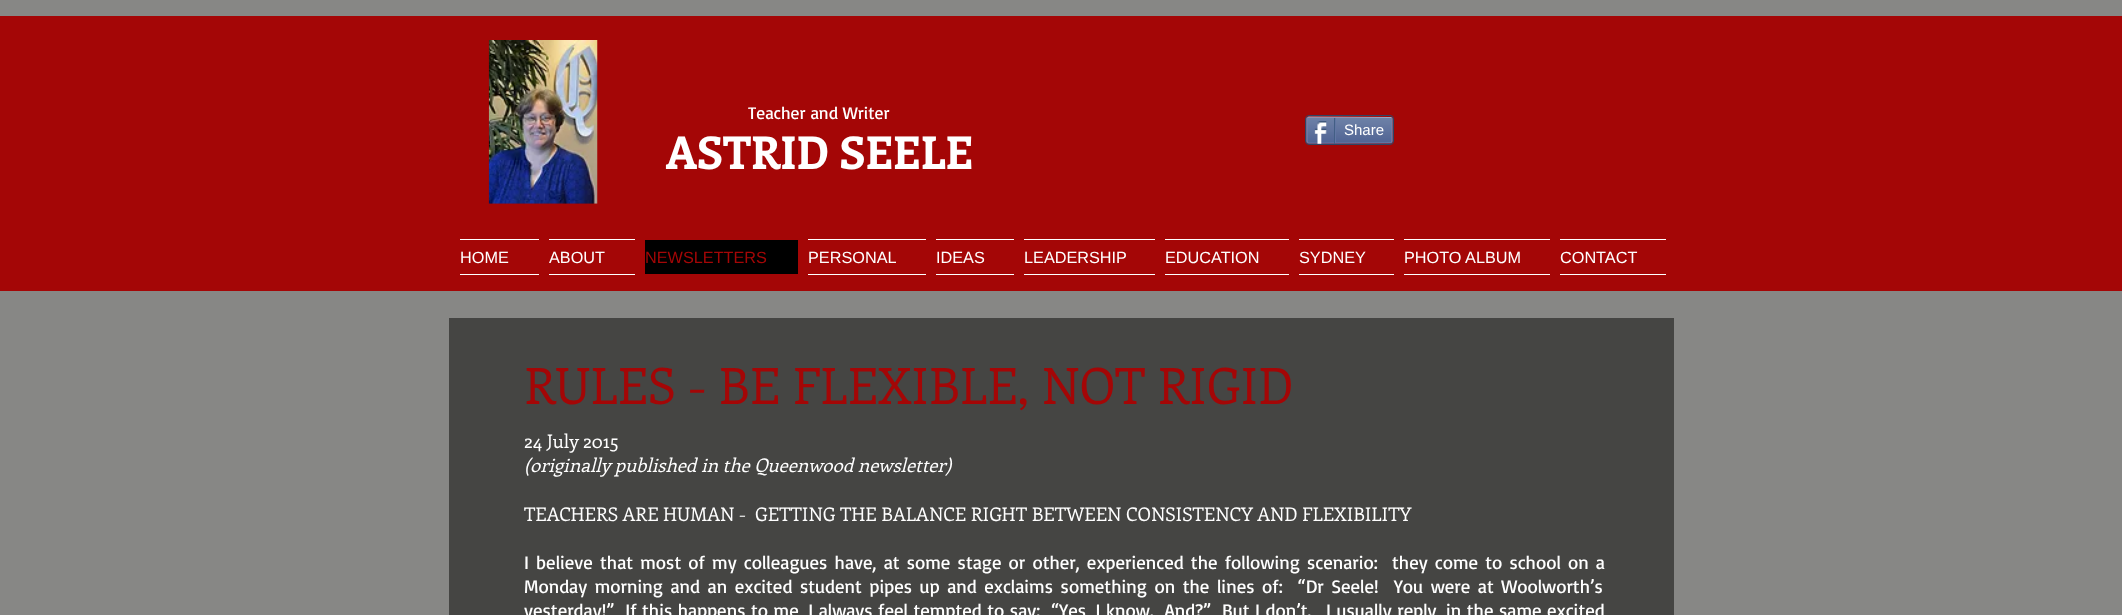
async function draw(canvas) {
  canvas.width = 2122;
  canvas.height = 615;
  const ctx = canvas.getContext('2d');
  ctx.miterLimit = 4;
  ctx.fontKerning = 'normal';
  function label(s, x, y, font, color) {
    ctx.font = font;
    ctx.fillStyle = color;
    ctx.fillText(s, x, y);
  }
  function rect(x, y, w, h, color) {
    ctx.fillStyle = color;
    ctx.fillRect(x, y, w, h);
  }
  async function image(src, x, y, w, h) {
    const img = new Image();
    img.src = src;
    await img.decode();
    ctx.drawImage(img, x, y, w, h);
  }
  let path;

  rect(0, 0, 2122, 615, '#878785');
  rect(0, 16, 2122, 275, '#a40606');
  await image('assets/img1.png', 488, 40, 110, 164);
  label('Teacher and Writer', 748, 119, '17.5px Basic', '#fff');
  ctx.beginPath();
  ctx.roundRect(1305.5, 115.5, 88, 29, 3.5);
  ctx.strokeStyle = '#2d4565';
  ctx.stroke();
  await image('assets/img2.png', 1306, 117, 87, 27);
  path = new Path2D('M1307.5 117.5L1309 117L1391.5 117.5');
  ctx.strokeStyle = '#9aabc6';
  ctx.lineWidth = 1.2;
  ctx.stroke(path);
  path = new Path2D('M1391.5 117.5L1392 119V141L1391.5 142.5');
  ctx.strokeStyle = '#6f83ad';
  ctx.stroke(path);
  path = new Path2D('M1391.5 142.5L1322.5 143H1309L1307.5 142.5');
  ctx.strokeStyle = '#6176a3';
  ctx.stroke(path);
  path = new Path2D('M1307.5 142.5L1307 141V119L1307.5 117.5');
  ctx.strokeStyle = '#6f83ad';
  ctx.stroke(path);
  await image('assets/img3.png', 1314, 121, 13, 23);
  rect(1334, 118, 1, 26, '#425e85');
  label('Share', 1344, 135, '15px Liberation Sans', '#fff');
  rect(1335, 118, 1, 25, '#6176a3');
  label('ASTRID SEELE', 666, 169, 'bold 45px Enriqueta', '#fff');
  rect(460, 239, 79, 1, '#fff');
  rect(460, 274, 79, 1, '#fff');
  label('HOME', 460, 263, '16.25px Liberation Sans', '#fff');
  rect(549, 239, 86, 1, '#fff');
  rect(549, 274, 86, 1, '#fff');
  label('ABOUT', 549, 263, '16.25px Liberation Sans', '#fff');
  rect(645, 240, 153, 34, '#000');
  label('NEWSLETTERS', 645, 263, '16.25px Liberation Sans', '#a40606');
  rect(808, 239, 118, 1, '#fff');
  rect(808, 274, 118, 1, '#fff');
  label('PERSONAL', 808, 263, '16.25px Liberation Sans', '#fff');
  rect(936, 239, 78, 1, '#fff');
  rect(936, 274, 78, 1, '#fff');
  label('IDEAS', 936, 263, '16.25px Liberation Sans', '#fff');
  rect(1024, 239, 131, 1, '#fff');
  rect(1024, 274, 131, 1, '#fff');
  label('LEADERSHIP', 1024, 263, '16.25px Liberation Sans', '#fff');
  rect(1165, 239, 124, 1, '#fff');
  rect(1165, 274, 124, 1, '#fff');
  label('EDUCATION', 1165, 263, '16.25px Liberation Sans', '#fff');
  rect(1299, 239, 95, 1, '#fff');
  rect(1299, 274, 95, 1, '#fff');
  label('SYDNEY', 1299, 263, '16.25px Liberation Sans', '#fff');
  rect(1404, 239, 146, 1, '#fff');
  rect(1404, 274, 146, 1, '#fff');
  label('PHOTO ALBUM', 1404, 263, '16.25px Liberation Sans', '#fff');
  rect(1560, 239, 106, 1, '#fff');
  rect(1560, 274, 106, 1, '#fff');
  label('CONTACT', 1560, 263, '16.25px Liberation Sans', '#fff');
  rect(449, 318, 1225, 297, '#454543');
  label('RULES - BE FLEXIBLE, NOT RIGID', 524, 404, '50px Enriqueta', '#a40606');
  label('24 July 2015', 524, 448, '18.75px Enriqueta', '#fff');
  label('(originally published in the Queenwood newsletter)', 524, 472, 'italic 18.75px Enriqueta', '#fff');
  label('TEACHERS ARE HUMAN -  GETTING THE BALANCE RIGHT BETWEEN CONSISTENCY AND FLEXIBILITY', 524, 521, '18.75px Enriqueta', '#fff');
  ctx.wordSpacing = '1.9px';
  label('I believe that most of my colleagues have, at some stage or other, experienced the following scenario:  they come to school on a', 524, 569, '18.75px Basic', '#fff');
  ctx.wordSpacing = '2.3px';
  label('Monday morning and an excited student pipes up and exclaims something on the lines of:  “Dr Seele!  You were at Woolworth’s', 524, 593, '18.75px Basic', '#fff');
  ctx.wordSpacing = '0.25px';
  label('yesterday!”  If this happens to me, I always feel tempted to say:  “Yes, I know.  And?”  But I don’t.', 524, 617, '18.75px Basic', '#fff');
  label('I usually reply, in the same excited', 1326, 617, '18.75px Basic', '#fff');
}

draw(document.querySelector('canvas'));
